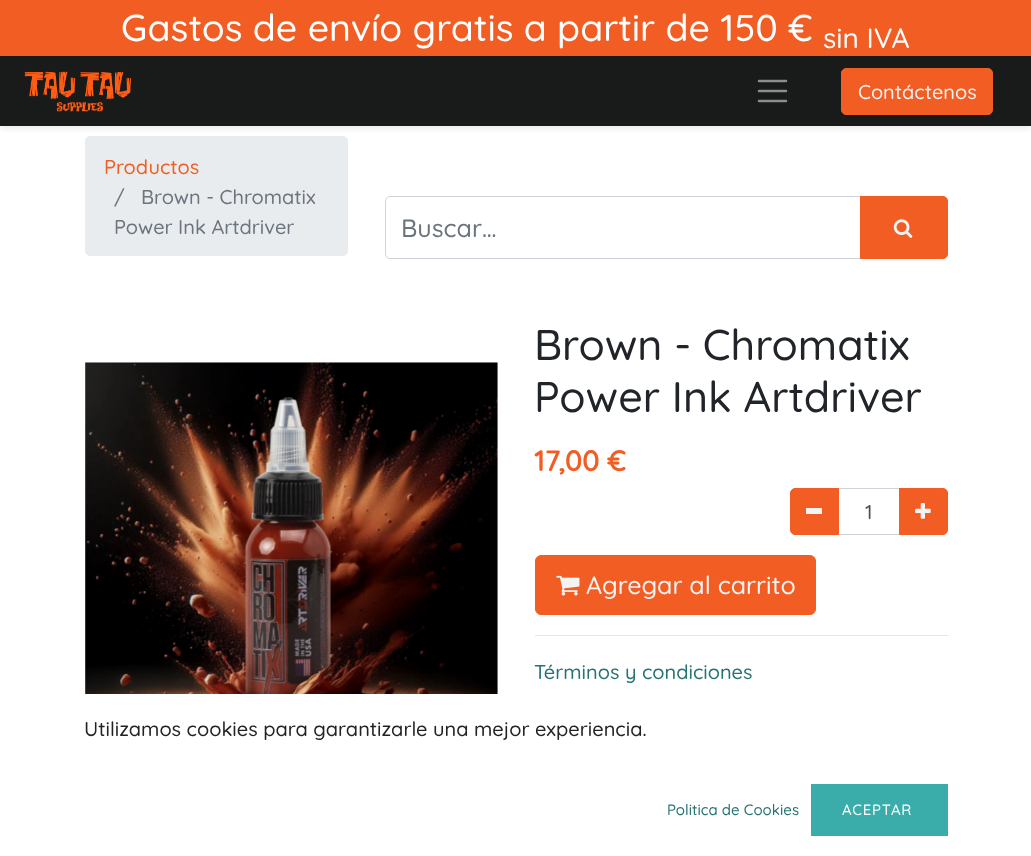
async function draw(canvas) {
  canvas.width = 1031;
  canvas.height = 856;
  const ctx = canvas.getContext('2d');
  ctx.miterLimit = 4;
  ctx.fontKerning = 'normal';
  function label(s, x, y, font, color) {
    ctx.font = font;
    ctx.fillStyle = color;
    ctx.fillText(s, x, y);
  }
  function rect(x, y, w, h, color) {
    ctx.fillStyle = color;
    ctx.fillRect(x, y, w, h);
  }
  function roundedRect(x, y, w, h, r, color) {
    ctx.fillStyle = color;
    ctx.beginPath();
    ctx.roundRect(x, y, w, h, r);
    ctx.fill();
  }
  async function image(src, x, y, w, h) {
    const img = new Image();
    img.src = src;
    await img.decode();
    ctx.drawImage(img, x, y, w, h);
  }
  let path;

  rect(0, 0, 1031, 856, '#fff');
  rect(0, 0, 1031, 56, '#f15d22');
  label('Gastos de envío gratis a partir de 150 €', 121, 41, '300 37.5px Quicksand', '#fff');
  label('sin IVA', 823, 48, '300 28px Quicksand', '#fff');
  roundedRect(85, 136, 263, 120, 5, '#e9ecef');
  ctx.fillStyle = '#00000012';
  ctx.filter = 'blur(2.5px)';
  ctx.beginPath();
  ctx.rect(0, 59, 1031, 70);
  ctx.fill();
  ctx.filter = 'none';
  rect(0, 56, 1031, 70, '#191a1a');
  await image('assets/img1.png', 24, 71, 107, 41);
  path = new Path2D('M759 81H786M759 91H786M759 101H786');
  ctx.strokeStyle = '#8c8d8d';
  ctx.lineWidth = 2.5;
  ctx.lineCap = 'round';
  ctx.stroke(path);
  ctx.fillStyle = '#f15d22';
  ctx.beginPath();
  ctx.roundRect(841.5, 68.5, 151, 46, 4.5);
  ctx.fill();
  ctx.strokeStyle = '#f15d22';
  ctx.lineWidth = 1;
  ctx.stroke();
  label('Contáctenos', 858, 99, '300 20px Quicksand', '#f3f3f3');
  label('Productos', 104, 174, '300 20px Quicksand', '#f15d22');
  label('/', 114, 204, '300 20px Quicksand', '#6c757d');
  label('Brown - Chromatix', 141, 204, '300 20px Quicksand', '#6c757d');
  label('Power Ink Artdriver', 114, 234, '300 20px Quicksand', '#6c757d');
  ctx.beginPath();
  ctx.roundRect(385.5, 196.5, 475, 62, [4.5, 0, 0, 4.5]);
  ctx.strokeStyle = '#ced4da';
  ctx.stroke();
  label('Buscar…', 401, 237, '300 25px Quicksand', '#6c757d');
  ctx.fillStyle = '#f15d22';
  ctx.beginPath();
  ctx.roundRect(860.5, 196.5, 87, 62, [0, 4.5, 4.5, 0]);
  ctx.fill();
  ctx.strokeStyle = '#f15d22';
  ctx.stroke();
  await image('assets/img2.png', 893, 219, 20, 19);
  await image('assets/img3.png', 85, 362, 413, 332);
  label('Brown - Chromatix', 534, 360, '300 43px Quicksand', '#212529');
  label('Power Ink Artdriver', 534, 412, '300 43px Quicksand', '#212529');
  label('17,00 €', 534, 471, 'bold 28.5px Quicksand', '#f15d22');
  ctx.strokeStyle = '#ced4da';
  ctx.strokeRect(838.5, 488.5, 61, 46);
  ctx.beginPath();
  ctx.roundRect(790.5, 488.5, 48, 46, [4.5, 0, 0, 4.5]);
  ctx.fill();
  ctx.strokeStyle = '#f15d22';
  ctx.stroke();
  rect(806, 508, 16, 6, '#f3f3f3');
  label('1', 865, 519, '300 20px Quicksand', '#495057');
  ctx.fillStyle = '#f15d22';
  ctx.beginPath();
  ctx.roundRect(899.5, 488.5, 48, 46, [0, 4.5, 4.5, 0]);
  ctx.fill();
  ctx.stroke();
  await image('assets/img4.png', 915, 503, 16, 16);
  ctx.beginPath();
  ctx.roundRect(535.5, 555.5, 280, 59, 5.5);
  ctx.fill();
  ctx.stroke();
  await image('assets/img5.png', 556, 575, 24, 21);
  label('Agregar al carrito', 586, 594, '300 25px Quicksand', '#f3f3f3');
  rect(535, 635, 413, 1, '#e6e6e6');
  label('Términos y condiciones', 534, 679, '300 20px Quicksand', '#267372');
  label('Utilizamos cookies para garantizarle una mejor experiencia.', 84, 736, '300 20px Quicksand', '#232323');
  label('Politica de Cookies', 667, 815, '300 15px Quicksand', '#267372');
  rect(811, 784, 137, 52, '#3aadaa');
  ctx.letterSpacing = '0.75px';
  label('ACEPTAR', 842, 815, '300 15px Quicksand', '#fff');
}

draw(document.querySelector('canvas'));
